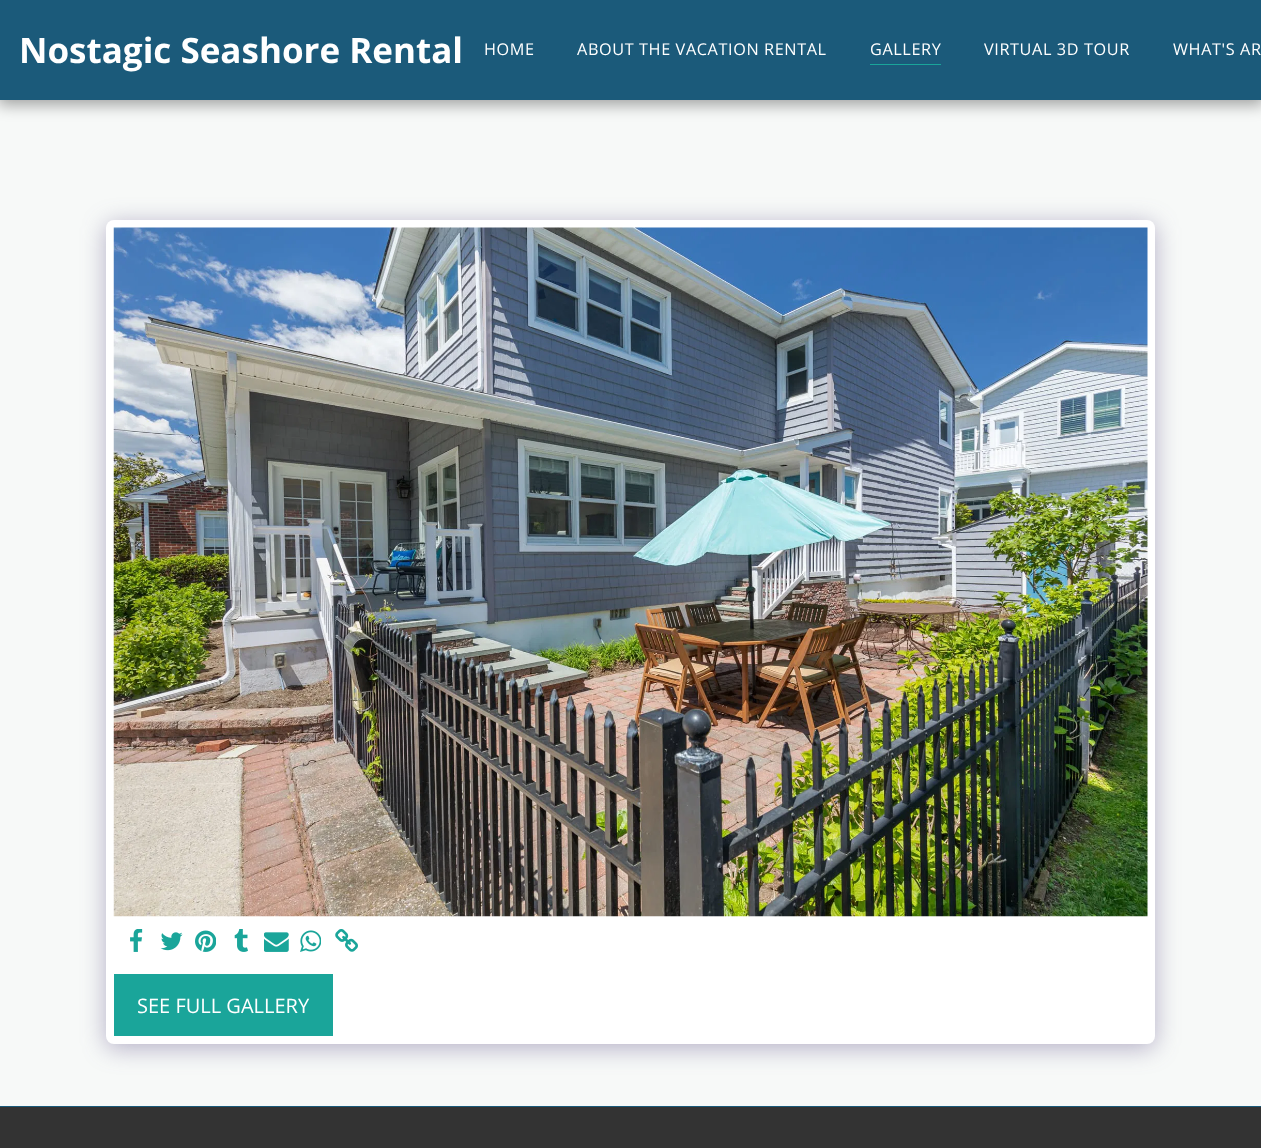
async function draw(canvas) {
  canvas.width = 1261;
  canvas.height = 1148;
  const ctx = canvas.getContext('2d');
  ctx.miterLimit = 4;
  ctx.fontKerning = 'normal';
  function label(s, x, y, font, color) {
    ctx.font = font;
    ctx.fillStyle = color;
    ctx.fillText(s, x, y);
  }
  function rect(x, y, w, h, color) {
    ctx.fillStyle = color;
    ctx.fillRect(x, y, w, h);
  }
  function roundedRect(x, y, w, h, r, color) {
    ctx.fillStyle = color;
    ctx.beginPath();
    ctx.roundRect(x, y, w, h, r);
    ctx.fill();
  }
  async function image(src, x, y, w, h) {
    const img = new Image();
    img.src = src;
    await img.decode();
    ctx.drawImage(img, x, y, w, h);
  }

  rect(0, 0, 1261, 1148, '#f7f9f8');
  ctx.fillStyle = '#00000059';
  ctx.filter = 'blur(7.5px)';
  ctx.beginPath();
  ctx.rect(-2, 0, 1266, 105);
  ctx.fill();
  ctx.filter = 'none';
  rect(0, 0, 1261, 100, '#1b5a7a');
  label('Nostagic Seashore Rental', 19, 63, 'bold 35px Open Sans', '#fff');
  ctx.letterSpacing = '0.6px';
  label('HOME', 484, 55, '16.25px Open Sans', '#fff');
  label('ABOUT THE VACATION RENTAL', 577, 55, '16.25px Open Sans', '#fff');
  label('GALLERY', 870, 55, '16.25px Open Sans', '#fff');
  rect(870, 64, 71, 1, '#1aa59a');
  label('VIRTUAL 3D TOUR', 984, 55, '16.25px Open Sans', '#fff');
  label('WHAT\'S AR', 1173, 55, '16.25px Open Sans', '#fff');
  ctx.fillStyle = '#4d3f7a66';
  ctx.filter = 'blur(12.5px)';
  ctx.beginPath();
  ctx.roundRect(106, 224, 1049, 824, 8);
  ctx.fill();
  ctx.filter = 'none';
  roundedRect(106, 220, 1049, 824, 8, '#fff');
  await image('assets/img1.png', 113, 227, 1035, 690);
  await image('assets/img2.png', 130, 929, 13, 23);
  await image('assets/img3.png', 160, 932, 23, 19);
  await image('assets/img4.png', 195, 930, 21, 22);
  await image('assets/img5.png', 234, 929, 14, 23);
  await image('assets/img6.png', 264, 932, 25, 20);
  await image('assets/img7.png', 300, 930, 21, 22);
  await image('assets/img8.png', 335, 929, 23, 23);
  rect(114, 974, 219, 62, '#1aa59a');
  ctx.letterSpacing = '0px';
  label('SEE FULL GALLERY', 137, 1013, '20px Open Sans', '#fff');
  rect(0, 1107, 1261, 41, '#333');
  rect(0, 1106, 1261, 1, '#1b5a7a');
}

draw(document.querySelector('canvas'));
